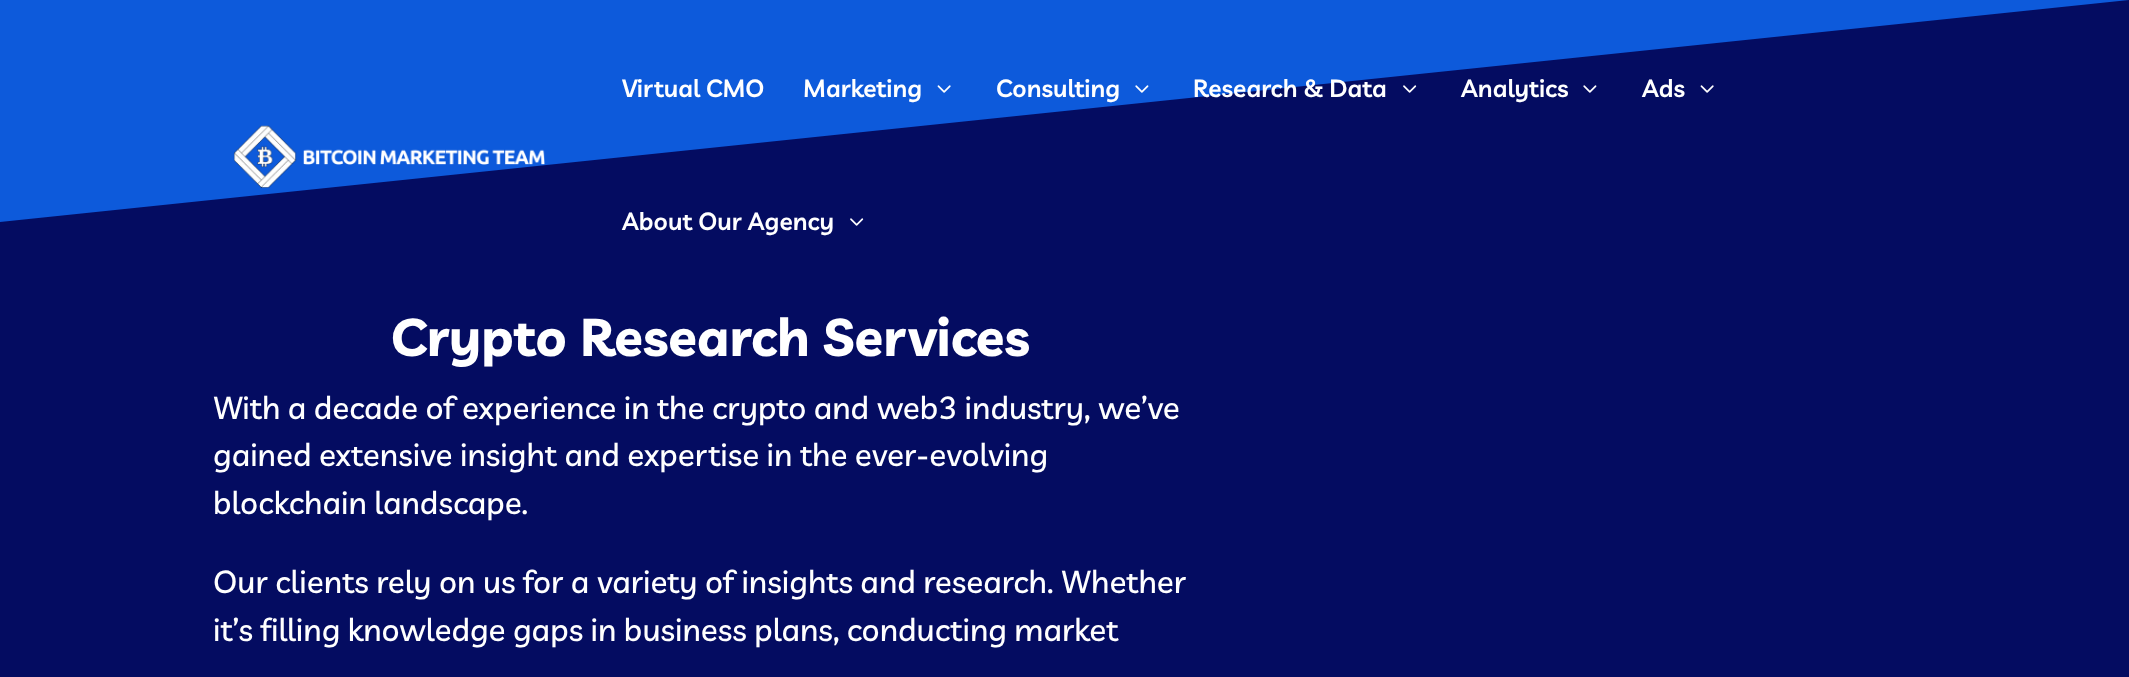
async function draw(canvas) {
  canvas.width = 2129;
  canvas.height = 677;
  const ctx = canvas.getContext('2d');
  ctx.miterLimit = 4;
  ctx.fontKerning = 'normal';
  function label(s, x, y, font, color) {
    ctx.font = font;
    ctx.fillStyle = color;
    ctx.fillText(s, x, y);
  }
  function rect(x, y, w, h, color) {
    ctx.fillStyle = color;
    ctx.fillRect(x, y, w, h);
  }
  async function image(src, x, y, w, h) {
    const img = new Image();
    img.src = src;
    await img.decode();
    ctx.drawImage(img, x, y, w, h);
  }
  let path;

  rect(0, 0, 2129, 677, '#040c61');
  ctx.fillStyle = '#0d5adb';
  path = new Path2D('M0 222V0H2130Z');
  ctx.fill(path);
  await image('assets/img1.png', 233, 125, 312, 63);
  label('Virtual CMO', 622, 97, '600 24.5px Livvic', '#fff');
  label('Marketing', 803, 97, '600 24.5px Livvic', '#fff');
  await image('assets/img2.png', 937, 85, 14, 8);
  label('Consulting', 996, 97, '600 24.5px Livvic', '#fff');
  await image('assets/img3.png', 1135, 85, 14, 8);
  label('Research & Data', 1193, 97, '600 24.5px Livvic', '#fff');
  await image('assets/img4.png', 1403, 85, 14, 8);
  label('Analytics', 1461, 97, '600 24.5px Livvic', '#fff');
  await image('assets/img5.png', 1583, 85, 14, 8);
  label('Ads', 1642, 97, '600 24.5px Livvic', '#fff');
  await image('assets/img6.png', 1700, 85, 14, 8);
  label('About Our Agency', 622, 230, '600 24.5px Livvic', '#fff');
  await image('assets/img4.png', 850, 218, 14, 8);
  label('Crypto Research Services', 391, 356, 'bold 52.5px Livvic', '#fff');
  label('With a decade of experience in the crypto and web3 industry, we’ve', 213, 419, '500 31.5px Livvic', '#fff');
  label('gained extensive insight and expertise in the ever-evolving', 213, 466, '500 31.5px Livvic', '#fff');
  label('blockchain landscape.', 213, 514, '500 31.5px Livvic', '#fff');
  label('Our clients rely on us for a variety of insights and research. Whether', 213, 593, '500 31.5px Livvic', '#fff');
  label('it’s filling knowledge gaps in business plans, conducting market', 213, 641, '500 31.5px Livvic', '#fff');
}

draw(document.querySelector('canvas'));
